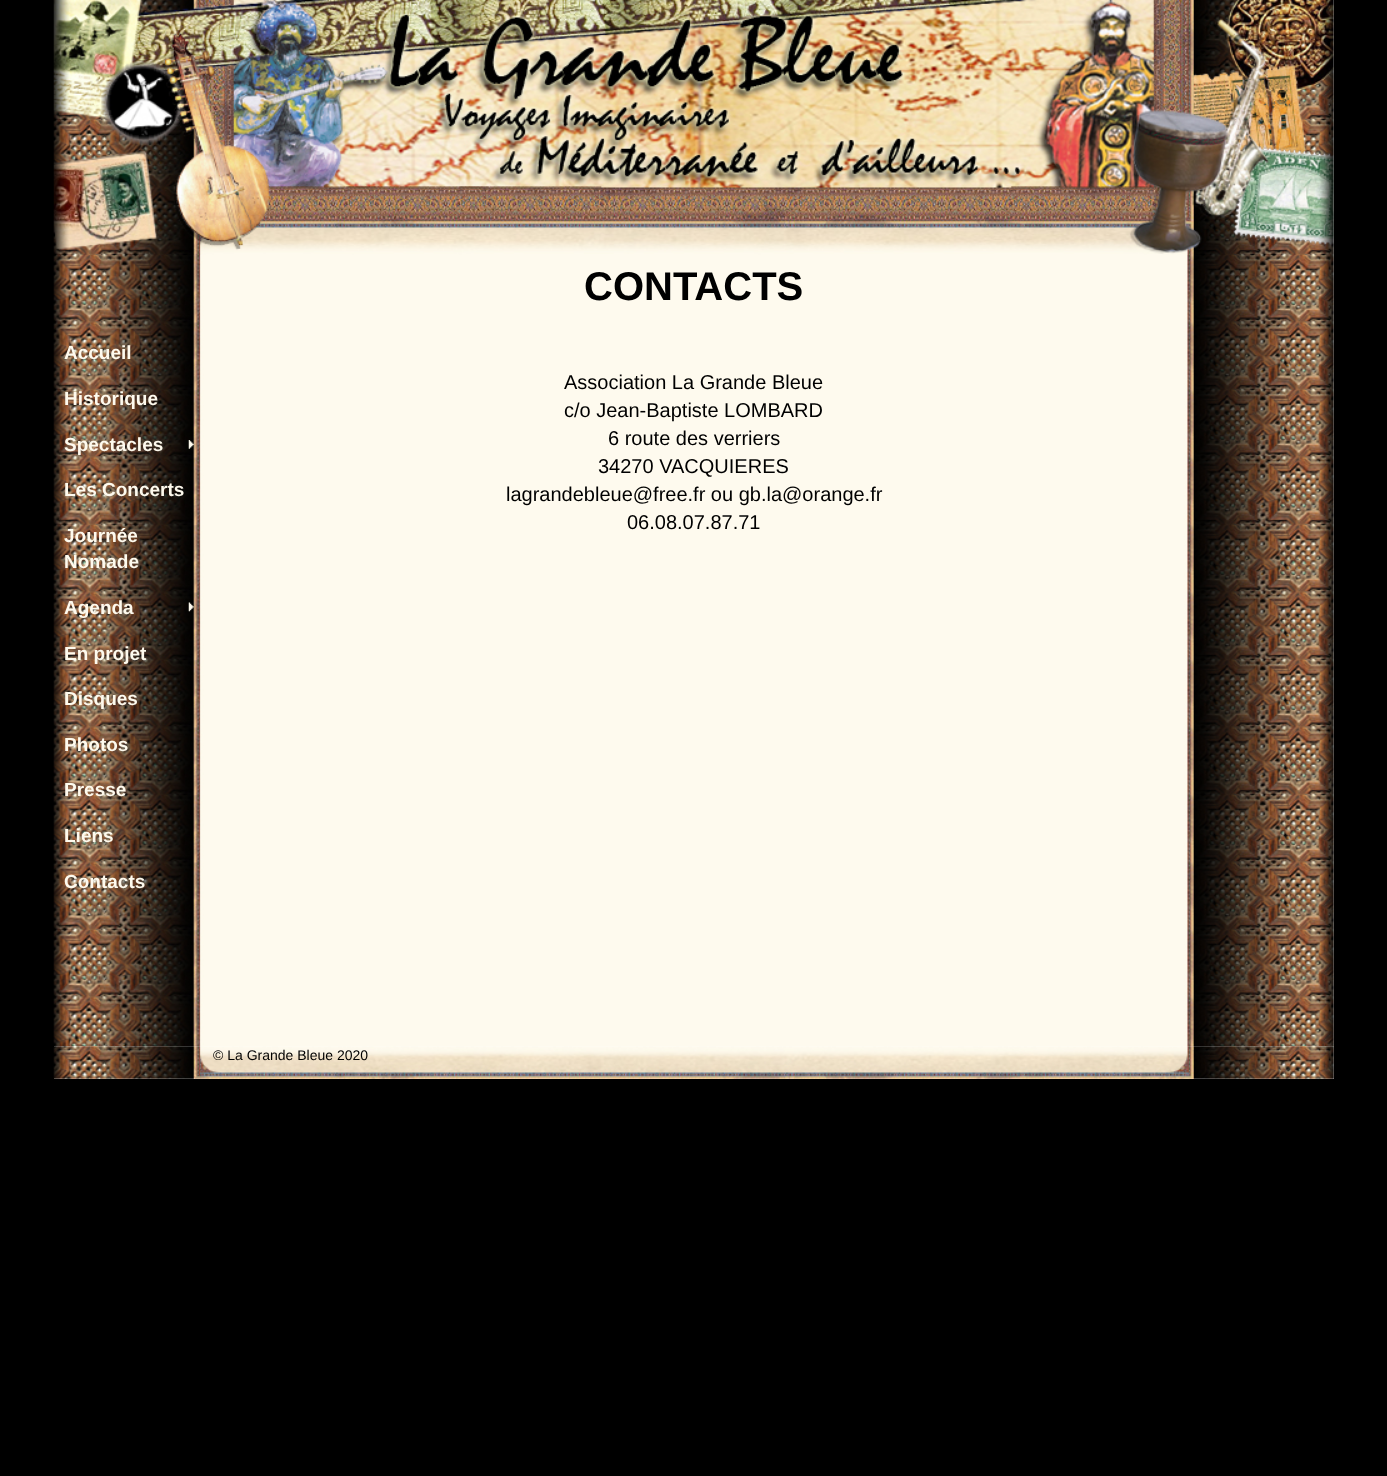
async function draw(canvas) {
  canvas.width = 1387;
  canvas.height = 1476;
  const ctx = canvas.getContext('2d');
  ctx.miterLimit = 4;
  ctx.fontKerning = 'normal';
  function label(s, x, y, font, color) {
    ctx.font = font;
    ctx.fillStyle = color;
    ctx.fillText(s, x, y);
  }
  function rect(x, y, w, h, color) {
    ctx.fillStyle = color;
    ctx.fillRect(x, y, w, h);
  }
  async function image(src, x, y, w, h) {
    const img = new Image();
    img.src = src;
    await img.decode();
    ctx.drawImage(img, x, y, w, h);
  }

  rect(0, 0, 1387, 1476, '#000');
  rect(54, 0, 1280, 1079, '#fff');
  await image('assets/img1.png', 53, 0, 1281, 255);
  await image('assets/img2.png', 53, 255, 1281, 792);
  label('Accueil', 64, 359, 'bold 19px Liberation Sans', '#fefaee');
  label('Historique', 64, 405, 'bold 19px Liberation Sans', '#fefaee');
  await image('assets/img3.png', 188, 440, 6, 9);
  label('Spectacles', 64, 451, 'bold 19px Liberation Sans', '#fefaee');
  label('Les Concerts', 64, 496, 'bold 19px Liberation Sans', '#fefaee');
  label('Journée', 64, 542, 'bold 19px Liberation Sans', '#fefaee');
  label('Nomade', 64, 568, 'bold 19px Liberation Sans', '#fefaee');
  await image('assets/img4.png', 188, 602, 6, 10);
  label('Agenda', 64, 614, 'bold 19px Liberation Sans', '#fefaee');
  label('En projet', 64, 660, 'bold 19px Liberation Sans', '#fefaee');
  label('Disques', 64, 705, 'bold 19px Liberation Sans', '#fefaee');
  label('Photos', 64, 751, 'bold 19px Liberation Sans', '#fefaee');
  label('Presse', 64, 796, 'bold 19px Liberation Sans', '#fefaee');
  label('Liens', 64, 842, 'bold 19px Liberation Sans', '#fefaee');
  label('Contacts', 64, 888, 'bold 19px Liberation Sans', '#fefaee');
  label('CONTACTS', 584, 300, 'bold 40px Liberation Sans', '#000');
  label('Association La Grande Bleue', 564, 389, '20px Liberation Sans', '#000');
  label('c/o Jean-Baptiste LOMBARD', 564, 417, '20px Liberation Sans', '#000');
  label('6 route des verriers', 608, 445, '20px Liberation Sans', '#000');
  label('34270 VACQUIERES', 598, 473, '20px Liberation Sans', '#000');
  label('lagrandebleue@free.fr ou gb.la@orange.fr', 506, 501, '20px Liberation Sans', '#000');
  label('06.08.07.87.71', 627, 529, '20px Liberation Sans', '#000');
  await image('assets/img5.png', 53, 1046, 1281, 33);
  label('© La Grande Bleue 2020', 213, 1060, '14px Liberation Sans', '#000');
}

draw(document.querySelector('canvas'));
